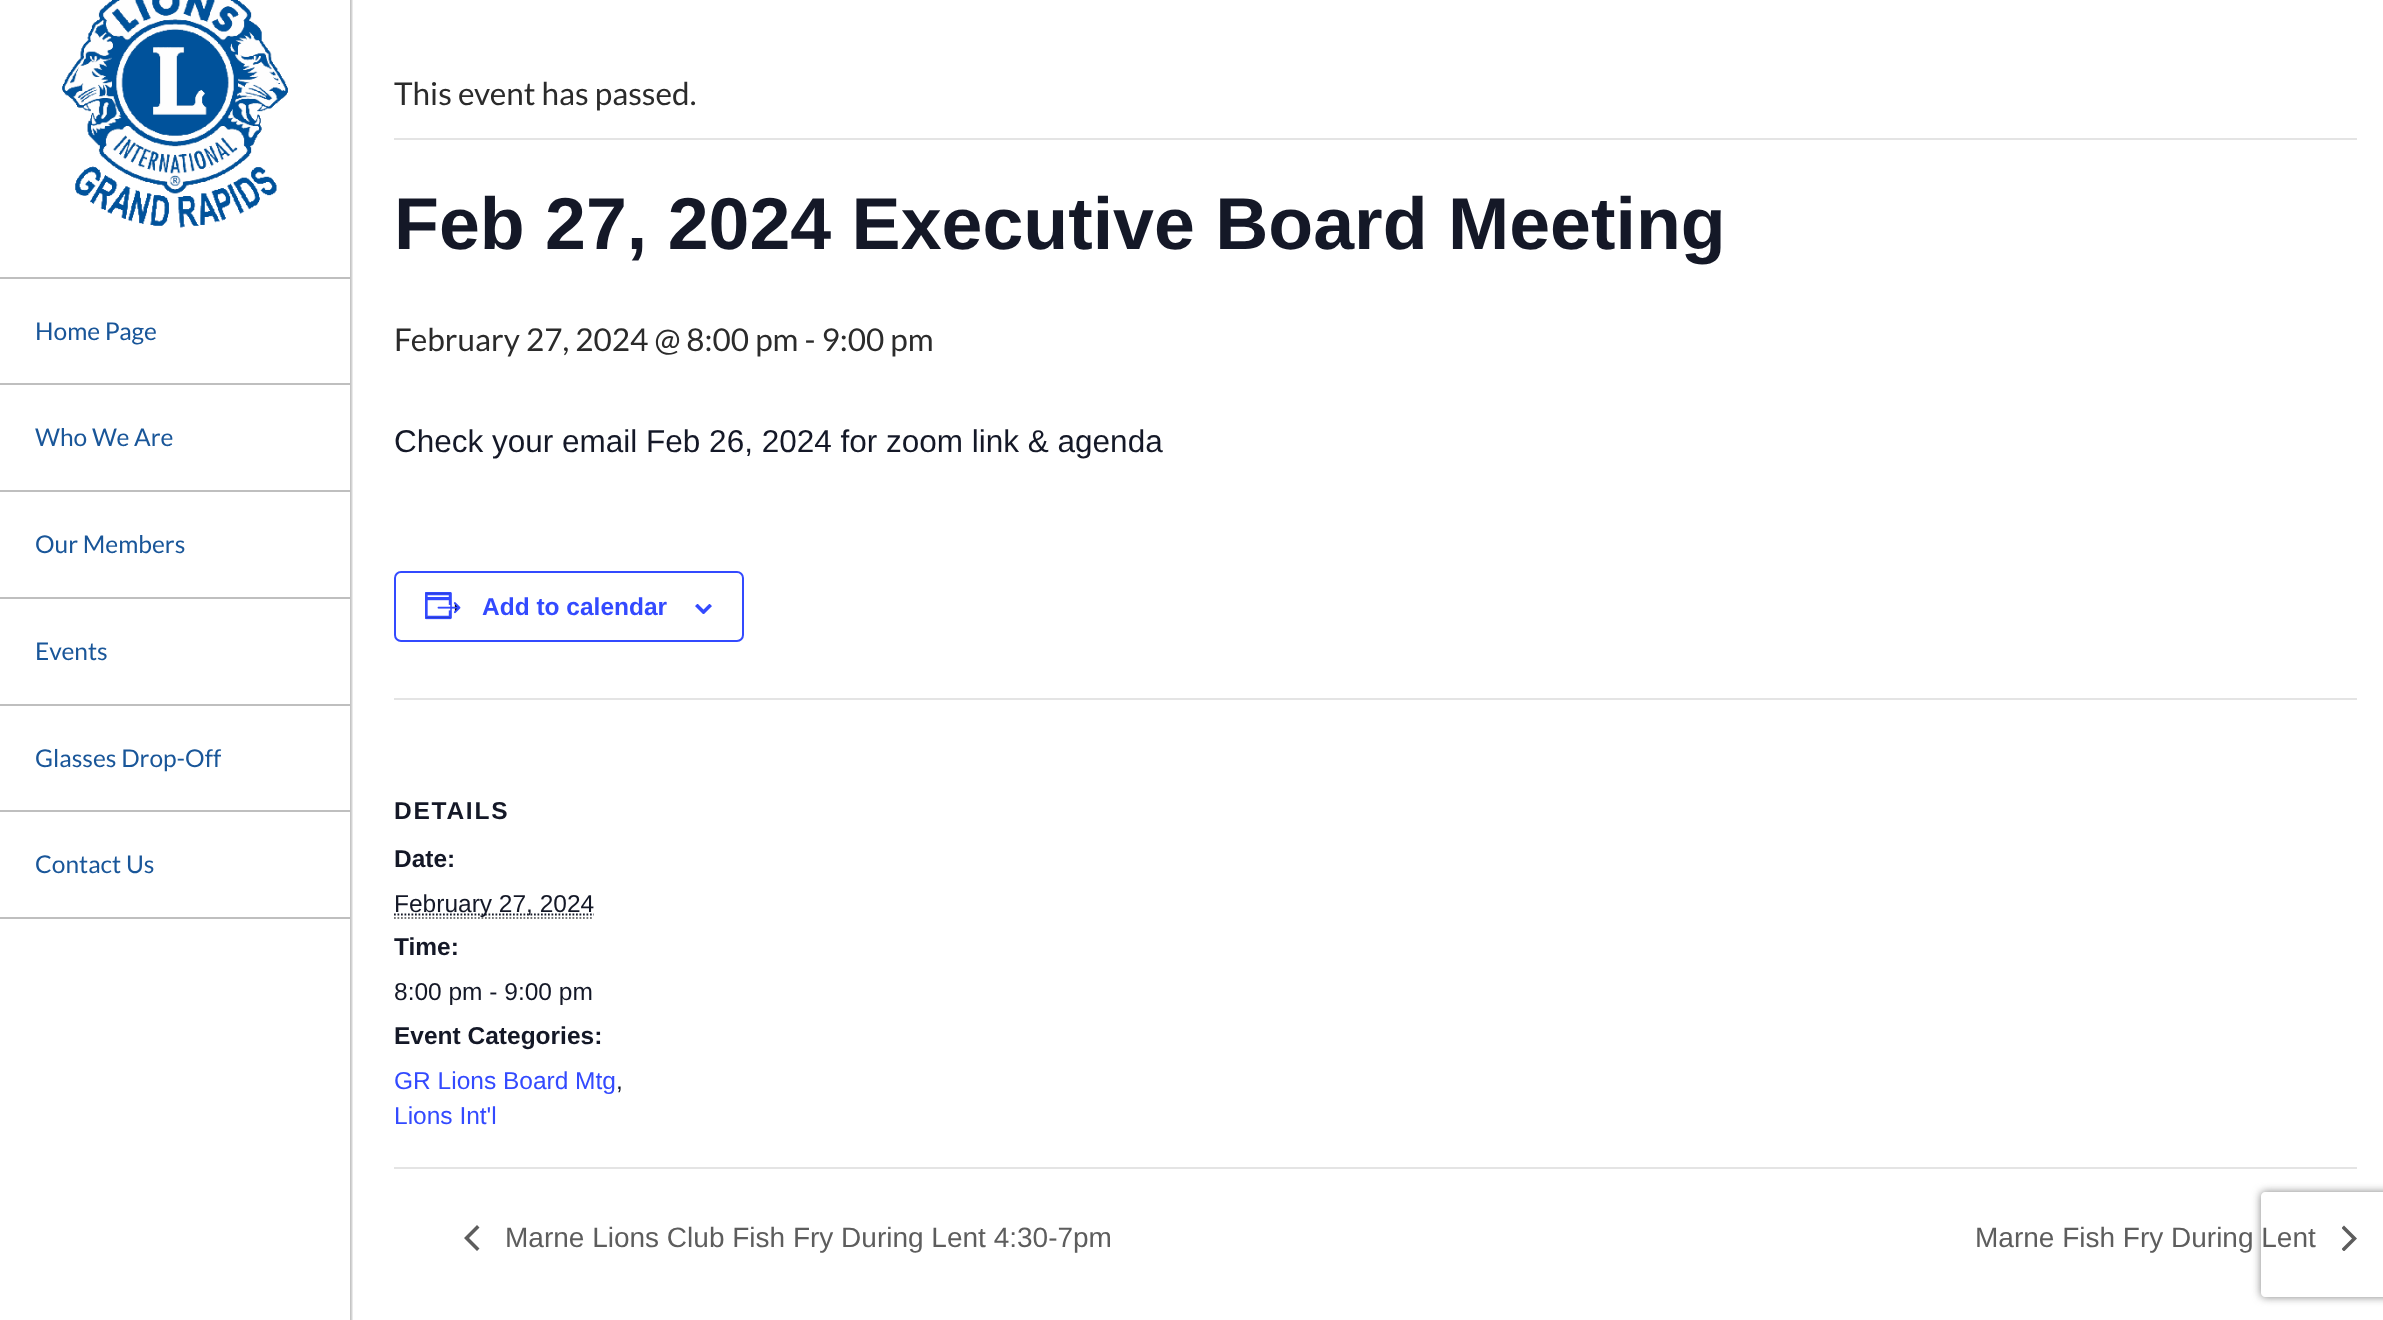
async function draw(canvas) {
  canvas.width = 2383;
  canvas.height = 1320;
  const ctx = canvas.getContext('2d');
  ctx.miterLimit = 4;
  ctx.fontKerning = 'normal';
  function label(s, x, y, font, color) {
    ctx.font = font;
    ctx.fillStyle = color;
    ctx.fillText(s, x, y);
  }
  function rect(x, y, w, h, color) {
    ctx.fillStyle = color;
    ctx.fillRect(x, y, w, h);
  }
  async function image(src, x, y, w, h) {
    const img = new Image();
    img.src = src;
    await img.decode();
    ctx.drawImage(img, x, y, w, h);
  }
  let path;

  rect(0, 0, 2383, 1320, '#fff');
  ctx.save();
  ctx.beginPath();
  ctx.rect(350, 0, 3, 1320);
  ctx.clip();
  ctx.fillStyle = '#00000040';
  ctx.filter = 'blur(1px)';
  ctx.beginPath();
  ctx.rect(2, -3, 350, 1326);
  ctx.fill();
  ctx.filter = 'none';
  ctx.restore();
  await image('assets/img1.png', 62, 0, 226, 228);
  rect(0, 277, 350, 2, '#bfbfbf');
  rect(0, 383, 350, 2, '#bfbfbf');
  label('Home Page', 35, 340, '24.5px Lato', '#195699');
  rect(0, 490, 350, 2, '#bfbfbf');
  label('Who We Are', 35, 446, '24.5px Lato', '#195699');
  rect(0, 597, 350, 2, '#bfbfbf');
  label('Our Members', 35, 553, '24.5px Lato', '#195699');
  rect(0, 704, 350, 2, '#bfbfbf');
  label('Events', 35, 660, '24.5px Lato', '#195699');
  rect(0, 810, 350, 2, '#bfbfbf');
  label('Glasses Drop-Off', 35, 767, '24.5px Lato', '#195699');
  rect(0, 917, 350, 2, '#bfbfbf');
  label('Contact Us', 35, 873, '24.5px Lato', '#195699');
  rect(394, 138, 1963, 2, '#e4e4e4');
  label('This event has passed.', 394, 105, '31.5px Lato', '#2b2b2b');
  label('Feb 27, 2024 Executive Board Meeting', 394, 249, 'bold 73.5px Liberation Sans', '#141827');
  label('February 27, 2024 @ 8:00 pm - 9:00 pm', 394, 351, '31.5px Lato', '#2b2b2b');
  label('Check your email Feb 26, 2024 for zoom link & agenda', 394, 452, '31.5px Liberation Sans', '#141827');
  ctx.beginPath();
  ctx.roundRect(395, 572, 348, 69, 6);
  ctx.strokeStyle = '#334aff';
  ctx.lineWidth = 2;
  ctx.stroke();
  await image('assets/img2.png', 425, 592, 36, 28);
  label('Add to calendar', 482, 615, 'bold 24.5px Liberation Sans', '#334aff');
  await image('assets/img3.png', 695, 604, 17, 10);
  rect(394, 698, 1963, 2, '#e4e4e4');
  ctx.letterSpacing = '1.75px';
  label('DETAILS', 394, 819, 'bold 24.5px Liberation Sans', '#141827');
  ctx.letterSpacing = '0px';
  label('Date:', 394, 867, 'bold 24.5px Liberation Sans', '#141827');
  path = new Path2D('M394 918H593');
  ctx.strokeStyle = '#777';
  ctx.lineWidth = 1.8;
  ctx.setLineDash([1.75, 1.75]);
  ctx.stroke(path);
  path = new Path2D('M394 914.5H594');
  ctx.strokeStyle = '#141827';
  ctx.stroke(path);
  label('February 27, 2024', 394, 912, '24.5px Liberation Sans', '#141827');
  label('Time:', 394, 955, 'bold 24.5px Liberation Sans', '#141827');
  label('8:00 pm - 9:00 pm', 394, 1000, '24.5px Liberation Sans', '#141827');
  label('Event Categories:', 394, 1044, 'bold 24.5px Liberation Sans', '#141827');
  label('GR Lions Board Mtg', 394, 1089, '24.5px Liberation Sans', '#334aff');
  label(',', 616, 1089, '24.5px Liberation Sans', '#141827');
  label('Lions Int\'l', 394, 1124, '24.5px Liberation Sans', '#334aff');
  rect(394, 1167, 1963, 2, '#e4e4e4');
  ctx.fillStyle = '#5d5d5d';
  path = new Path2D('M479.5 1248.5L477 1251L464 1238L477 1225L479.5 1227.5L469 1238Z');
  ctx.fill(path);
  label('Marne Lions Club Fish Fry During Lent 4:30-7pm', 505, 1247, '28px Liberation Sans', '#5d5d5d');
  label('Marne Fish Fry During Lent', 1975, 1247, '28px Liberation Sans', '#5d5d5d');
  ctx.save();
  ctx.beginPath();
  ctx.rect(2342, 1225, 15, 26);
  ctx.clip();
  path = new Path2D('M2341.5 1228L2344 1225.5L2357 1238.5L2344 1251.5L2341.5 1249L2352 1238.5Z');
  ctx.fill(path);
  ctx.restore();
  ctx.save();
  path = new Path2D('M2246 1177H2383V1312H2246ZM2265 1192H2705C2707 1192 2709 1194 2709 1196V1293C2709 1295 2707 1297 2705 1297H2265C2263 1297 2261 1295 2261 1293V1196C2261 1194 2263 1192 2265 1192Z');
  ctx.clip(path, 'evenodd');
  ctx.fillStyle = '#808080';
  ctx.filter = 'blur(4.5px)';
  ctx.beginPath();
  ctx.roundRect(2261, 1192, 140, 105, 4);
  ctx.fill();
  ctx.filter = 'none';
  ctx.restore();
}

draw(document.querySelector('canvas'));
